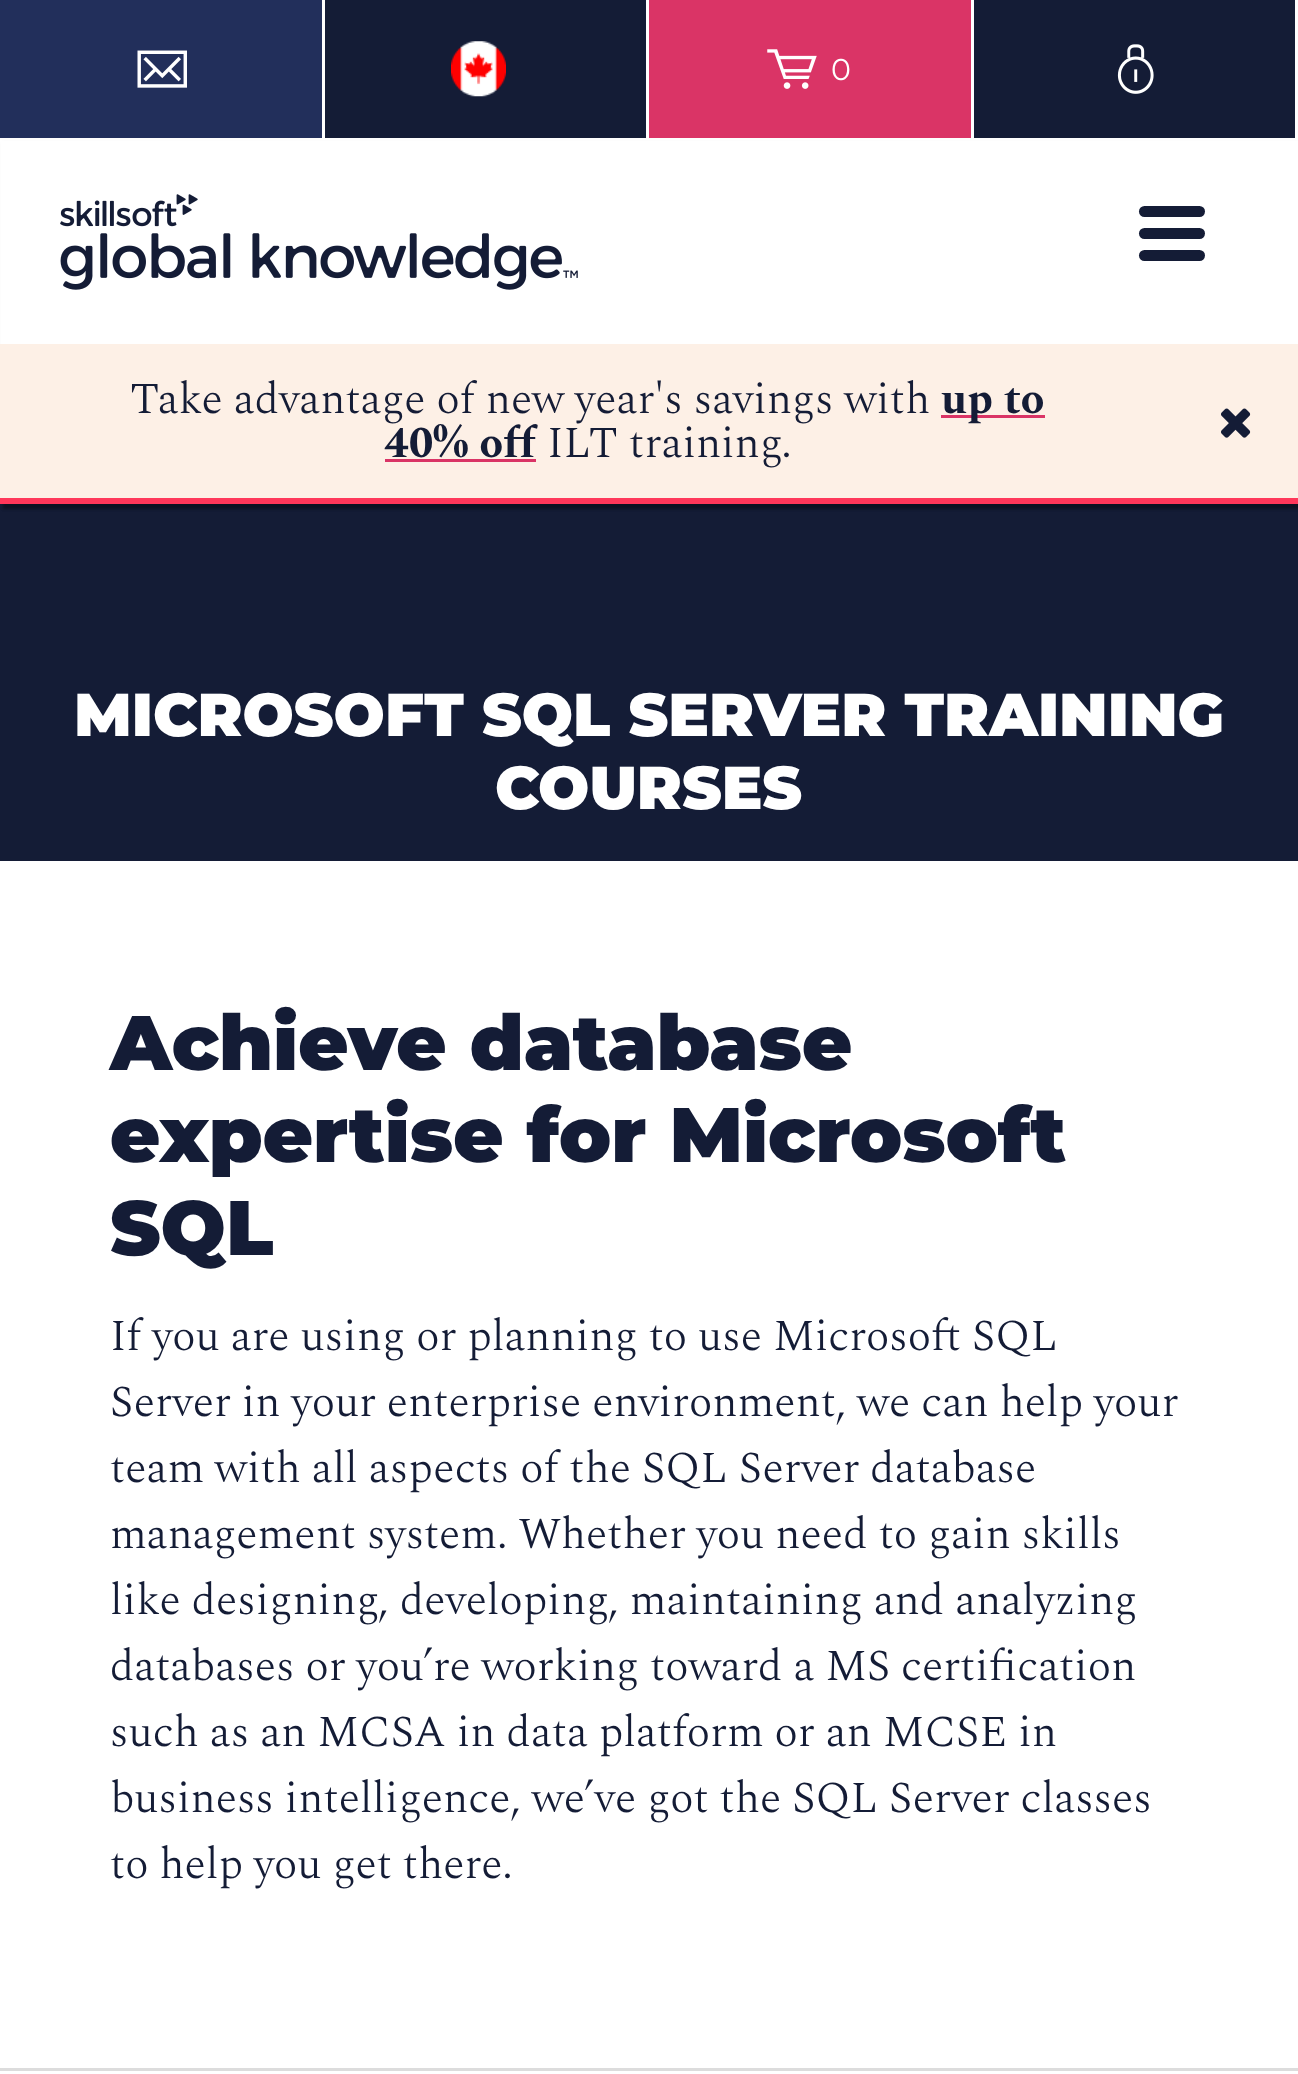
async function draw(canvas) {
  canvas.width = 1298;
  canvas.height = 2074;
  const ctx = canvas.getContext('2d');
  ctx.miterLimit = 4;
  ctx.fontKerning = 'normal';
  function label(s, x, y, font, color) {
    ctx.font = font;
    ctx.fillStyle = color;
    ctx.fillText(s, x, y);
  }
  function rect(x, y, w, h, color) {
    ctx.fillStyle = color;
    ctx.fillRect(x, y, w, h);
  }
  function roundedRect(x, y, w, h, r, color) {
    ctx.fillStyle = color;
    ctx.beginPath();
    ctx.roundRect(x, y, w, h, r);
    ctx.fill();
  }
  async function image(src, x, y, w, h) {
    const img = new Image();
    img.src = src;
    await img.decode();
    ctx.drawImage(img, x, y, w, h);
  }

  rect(0, 0, 1298, 2074, '#fff');
  rect(325, 0, 970, 138, '#141c36');
  rect(0, 0, 322, 138, '#222f5b');
  await image('assets/img1.png', 137, 50, 50, 38);
  rect(646, 0, 3, 138, '#fff');
  await image('assets/img2.png', 451, 41, 55, 56);
  rect(649, 0, 322, 138, '#da3466');
  rect(971, 0, 3, 138, '#fff');
  await image('assets/img3.png', 767, 49, 50, 40);
  label('0', 831, 80, '30px Montserrat', '#fff');
  await image('assets/img4.png', 1117, 44, 37, 50);
  rect(0, 504, 1298, 357, '#141c36');
  ctx.fillStyle = '#00000033';
  ctx.filter = 'blur(1.5px)';
  ctx.beginPath();
  ctx.rect(3, 143, 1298, 366);
  ctx.fill();
  ctx.filter = 'none';
  rect(1, 141, 1297, 203, '#fff');
  await image('assets/img5.png', 60, 194, 518, 96);
  roundedRect(1139, 228, 66, 11, 5.5, '#141c36');
  roundedRect(1139, 206, 66, 11, 5.5, '#141c36');
  roundedRect(1139, 250, 66, 11, 5.5, '#141c36');
  ctx.fillStyle = '#00000033';
  ctx.filter = 'blur(1.5px)';
  ctx.beginPath();
  ctx.rect(3, 349, 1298, 160);
  ctx.fill();
  ctx.filter = 'none';
  rect(0, 344, 1298, 154, '#fdf0e6');
  rect(0, 498, 1298, 6, '#ff375a');
  label('Take advantage of new year\'s savings with', 130, 413, '300 44px Spectral', '#141c36');
  rect(941, 415, 104, 3, '#da3466');
  label('up to', 941, 413, 'bold 44px Spectral', '#141c36');
  label('40% off', 384, 457, 'bold 44px Spectral', '#141c36');
  rect(385, 459, 151, 3, '#da3466');
  label('ILT training.', 547, 457, '300 44px Spectral', '#141c36');
  await image('assets/img6.png', 1221, 408, 30, 30);
  label('MICROSOFT SQL SERVER TRAINING', 74, 736, '900 60.5px Montserrat', '#fff');
  label('COURSES', 495, 809, '900 60.5px Montserrat', '#fff');
  rect(0, 2068, 1298, 3, '#dcdcdc');
  label('Achieve database', 110, 1070, '900 77px Montserrat', '#141c36');
  label('expertise for Microsoft', 110, 1162, '900 77px Montserrat', '#141c36');
  label('SQL', 110, 1255, '900 77px Montserrat', '#141c36');
  label('If you are using or planning to use Microsoft SQL', 110, 1350, '300 44px Spectral', '#141c36');
  label('Server in your enterprise environment, we can help your', 110, 1416, '300 44px Spectral', '#141c36');
  label('team with all aspects of the SQL Server database', 110, 1482, '300 44px Spectral', '#141c36');
  label('management system. Whether you need to gain skills', 110, 1548, '300 44px Spectral', '#141c36');
  label('like designing, developing, maintaining and analyzing', 110, 1614, '300 44px Spectral', '#141c36');
  label('databases or you’re working toward a MS certification', 110, 1680, '300 44px Spectral', '#141c36');
  label('such as an MCSA in data platform or an MCSE in', 110, 1746, '300 44px Spectral', '#141c36');
  label('business intelligence, we’ve got the SQL Server classes', 110, 1812, '300 44px Spectral', '#141c36');
  label('to help you get there.', 110, 1878, '300 44px Spectral', '#141c36');
}

draw(document.querySelector('canvas'));
